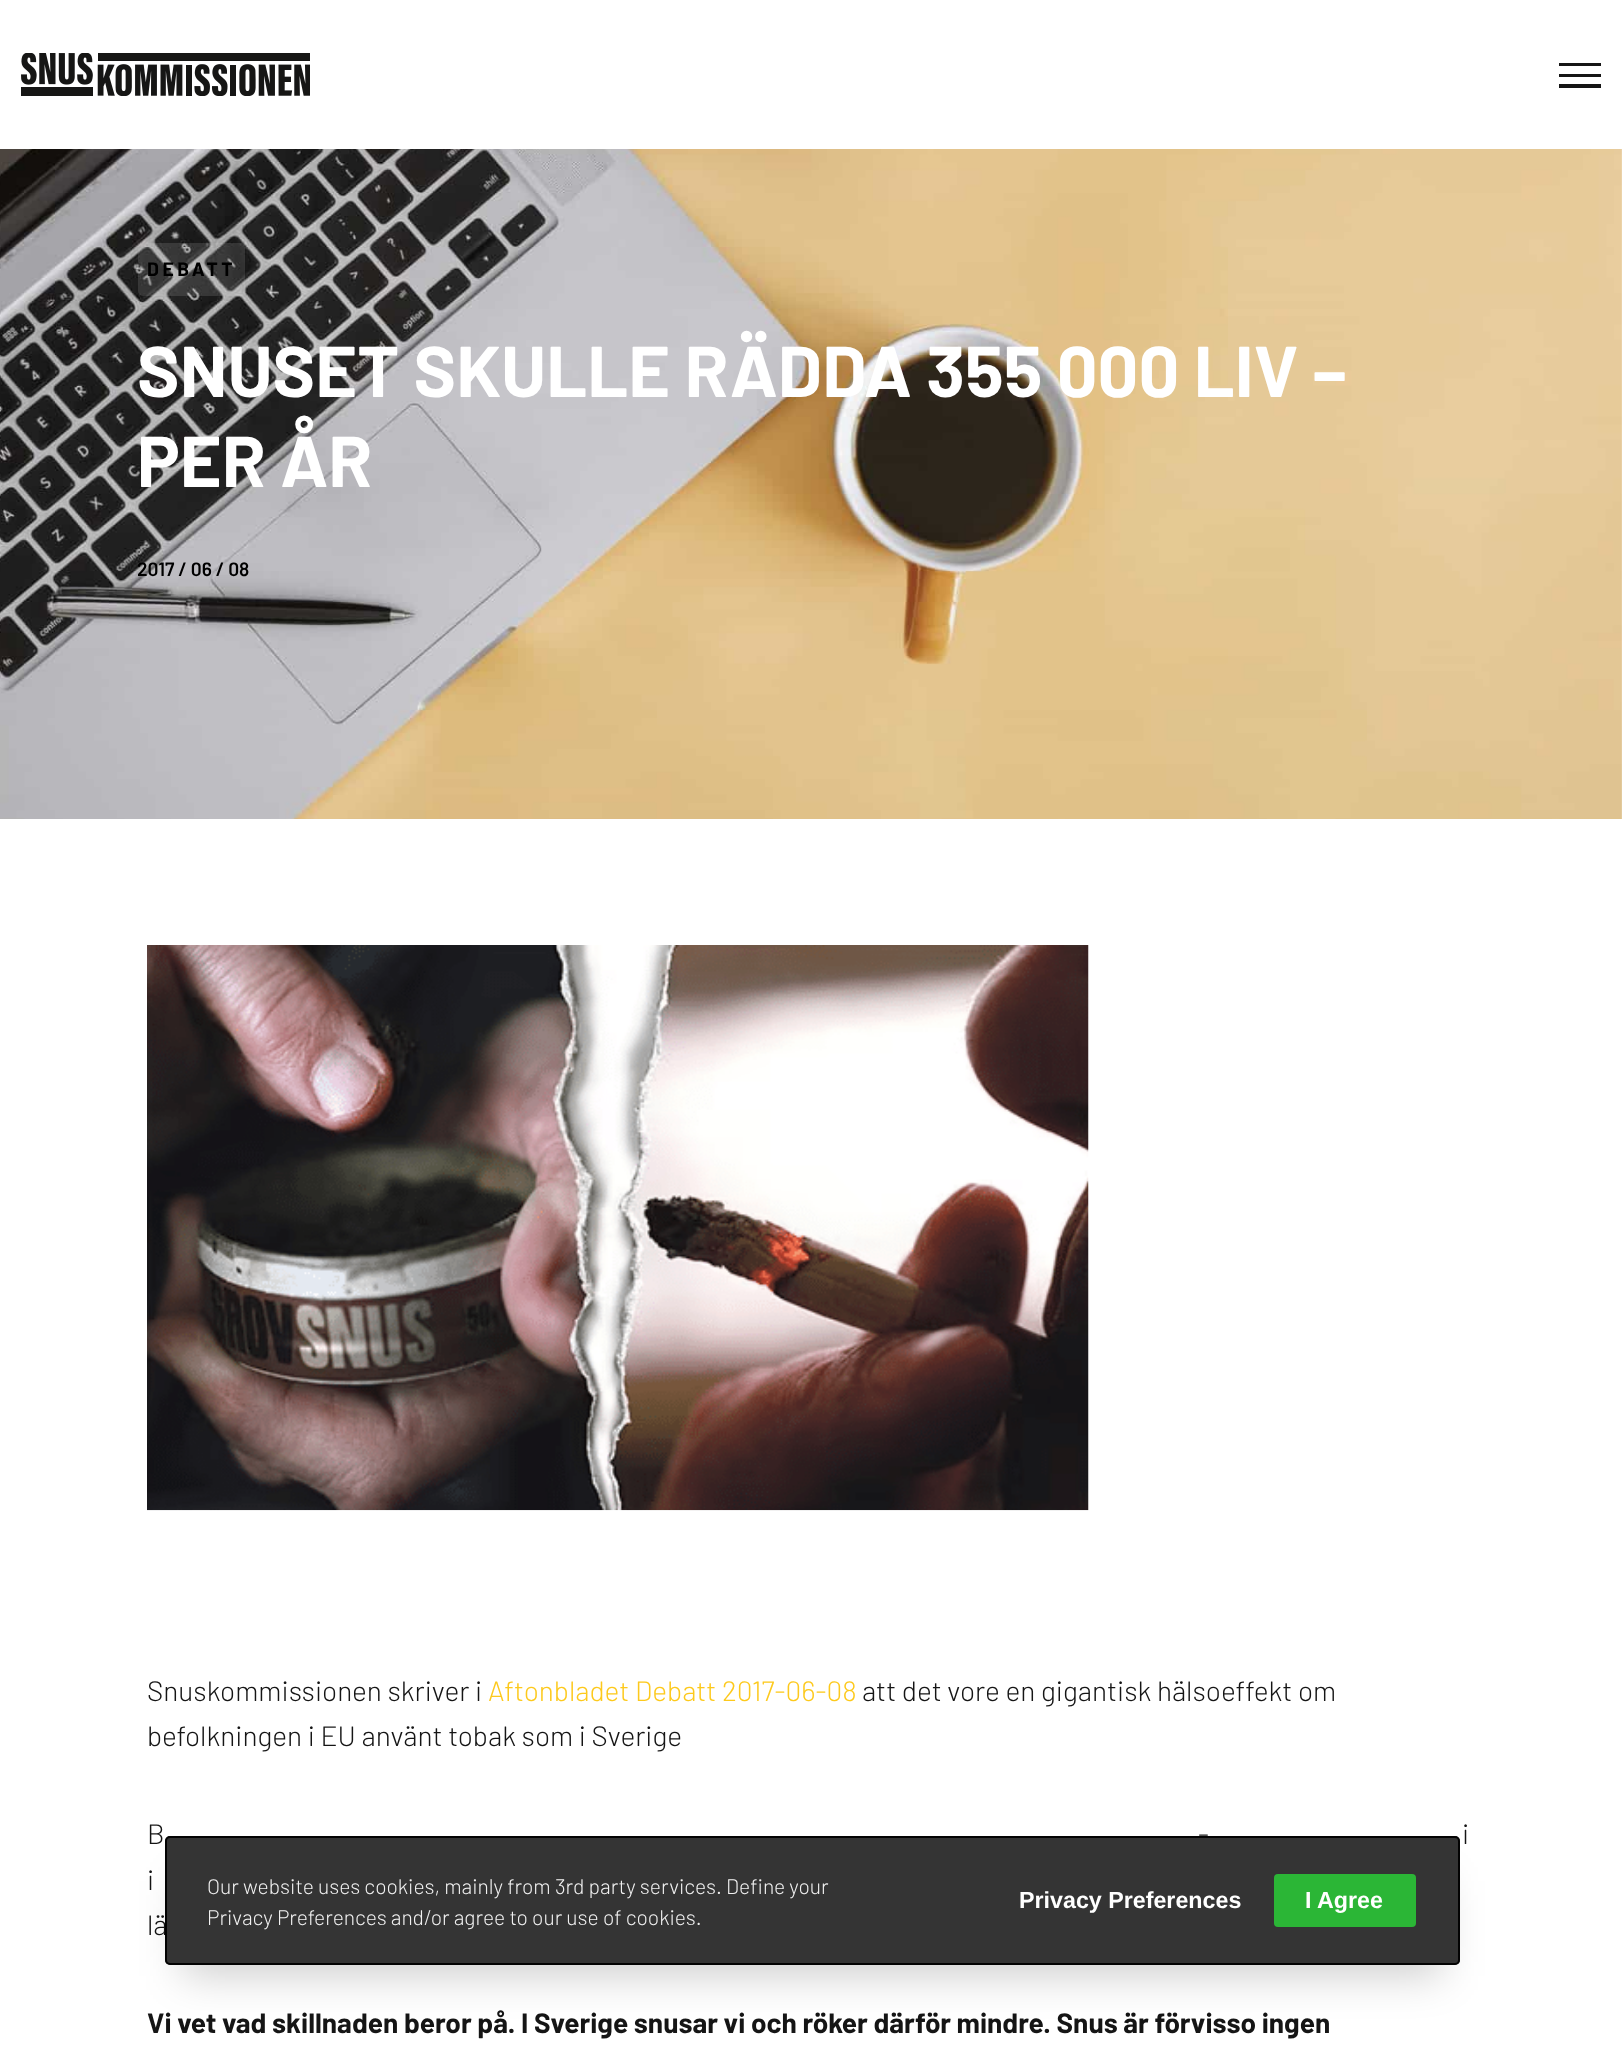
async function draw(canvas) {
  canvas.width = 1622;
  canvas.height = 2046;
  const ctx = canvas.getContext('2d');
  ctx.miterLimit = 4;
  ctx.fontKerning = 'normal';
  function label(s, x, y, font, color) {
    ctx.font = font;
    ctx.fillStyle = color;
    ctx.fillText(s, x, y);
  }
  function rect(x, y, w, h, color) {
    ctx.fillStyle = color;
    ctx.fillRect(x, y, w, h);
  }
  function roundedRect(x, y, w, h, r, color) {
    ctx.fillStyle = color;
    ctx.beginPath();
    ctx.roundRect(x, y, w, h, r);
    ctx.fill();
  }
  async function image(src, x, y, w, h) {
    const img = new Image();
    img.src = src;
    await img.decode();
    ctx.drawImage(img, x, y, w, h);
  }
  let path;

  rect(0, 0, 1622, 2046, '#fff');
  await image('assets/img1.png', 21, 53, 289, 43);
  ctx.fillStyle = '#151515';
  path = new Path2D('M1601 84V88H1559V84ZM1601 74V77H1559V74ZM1601 63V66H1559V63Z');
  ctx.fill(path);
  await image('assets/img2.png', 0, 149, 1622, 670);
  roundedRect(138, 243, 107, 53, 5, '#d6d6d626');
  ctx.letterSpacing = '3.5px';
  label('DEBATT', 147, 276, 'bold 19.25px Barlow', '#000');
  ctx.letterSpacing = '0px';
  label('SNUSET SKULLE RÄDDA 355 000 LIV –', 137, 397, 'bold 71.75px Barlow', '#fff');
  label('PER ÅR', 137, 487, 'bold 71.75px Barlow', '#fff');
  label('2017 / 06 / 08', 137, 576, '600 19.25px Barlow', '#000');
  await image('assets/img3.png', 147, 945, 942, 566);
  label('Snuskommissionen skriver i', 147, 1701, '300 28px Barlow', '#151515');
  label('Aftonbladet Debatt 2017-06-08', 488, 1701, '300 28px Barlow', '#fdc91c');
  label('att det vore en gigantisk hälsoeffekt om', 862, 1701, '300 28px Barlow', '#151515');
  label('befolkningen i EU använt tobak som i Sverige', 147, 1746, '300 28px Barlow', '#151515');
  label('B', 147, 1844, '300 28px Barlow', '#151515');
  label('-', 1198, 1844, '300 28px Barlow', '#151515');
  label('i', 1462, 1844, '300 28px Barlow', '#151515');
  label('i', 147, 1890, '300 28px Barlow', '#151515');
  label('lä', 147, 1935, '300 28px Barlow', '#151515');
  label('Vi vet vad skillnaden beror på. I Sverige snusar vi och röker därför mindre. Snus är förvisso ingen', 147, 2033, 'bold 28px Barlow', '#151515');
  ctx.save();
  path = new Path2D('M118 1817H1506V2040H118ZM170 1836H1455C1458 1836 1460 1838 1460 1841V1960C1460 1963 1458 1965 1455 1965H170C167 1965 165 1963 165 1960V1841C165 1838 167 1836 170 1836Z');
  ctx.clip(path, 'evenodd');
  ctx.fillStyle = '#00000030';
  ctx.filter = 'blur(21px)';
  ctx.beginPath();
  ctx.rect(182, 1881, 1260, 95);
  ctx.fill();
  ctx.filter = 'none';
  ctx.restore();
  roundedRect(165, 1836, 1295, 129, 5, '#0d0d0dd6');
  ctx.beginPath();
  ctx.roundRect(166, 1837, 1293, 127, 4);
  ctx.strokeStyle = '#000000ed';
  ctx.lineWidth = 2;
  ctx.stroke();
  label('Our website uses cookies, mainly from 3rd party services. Define your', 207, 1894, '300 21px Barlow', '#f1f1f1');
  label('Privacy Preferences and/or agree to our use of cookies.', 207, 1925, '300 21px Barlow', '#f1f1f1');
  label('Privacy Preferences', 1019, 1908, 'bold 23.25px Liberation Sans', '#fff');
  roundedRect(1274, 1874, 142, 53, 4, '#2bc137ed');
  label('I Agree', 1305, 1908, 'bold 23.25px Liberation Sans', '#fff');
}

draw(document.querySelector('canvas'));
